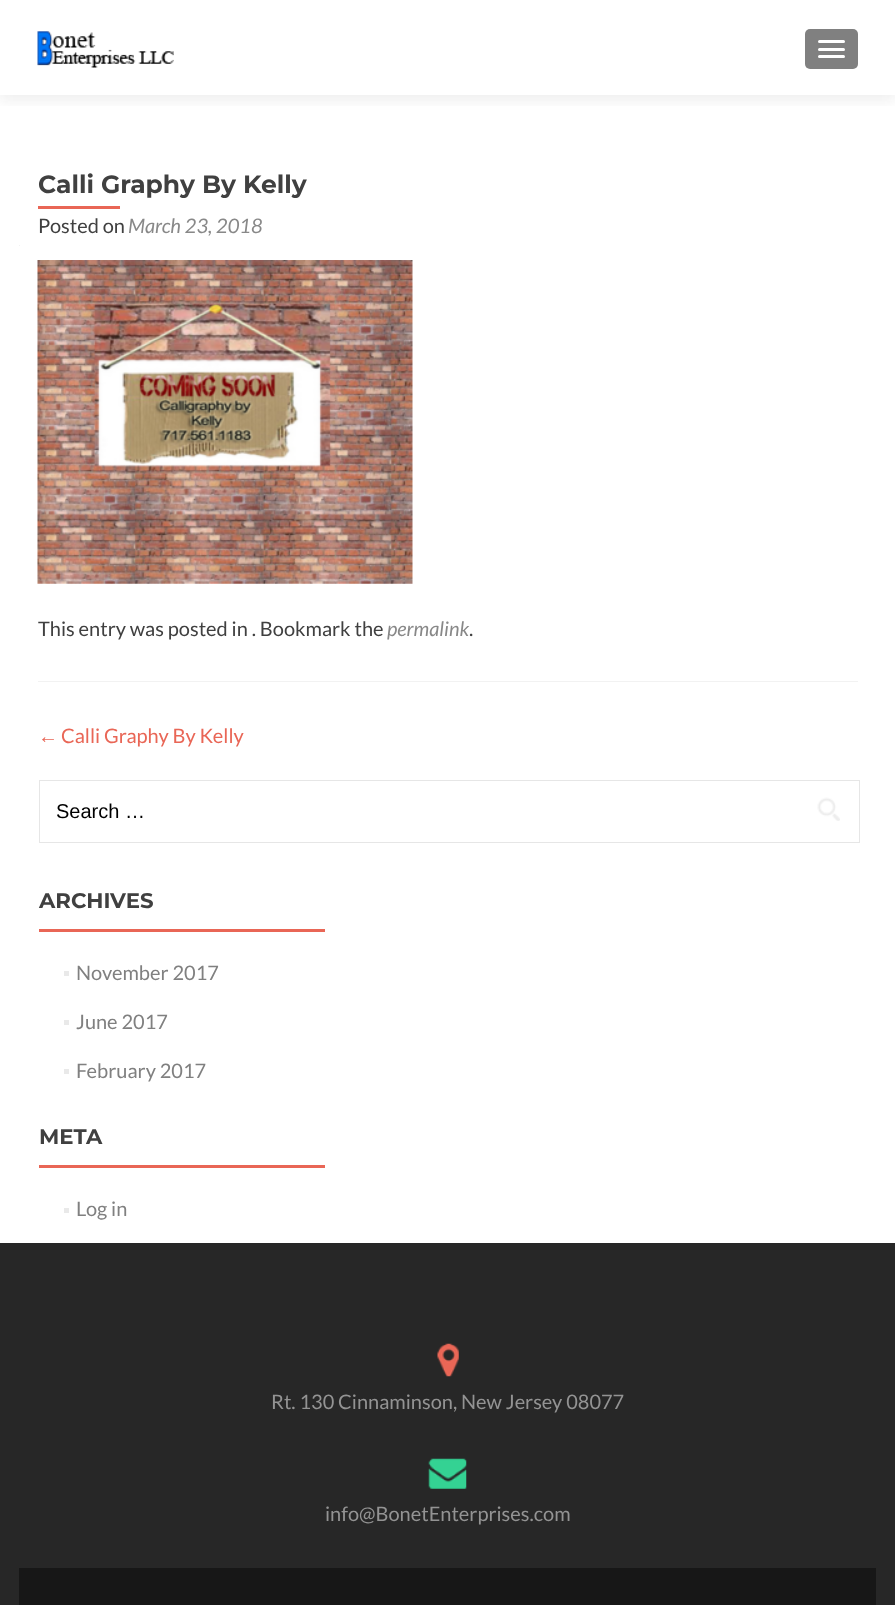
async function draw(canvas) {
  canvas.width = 895;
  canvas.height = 1605;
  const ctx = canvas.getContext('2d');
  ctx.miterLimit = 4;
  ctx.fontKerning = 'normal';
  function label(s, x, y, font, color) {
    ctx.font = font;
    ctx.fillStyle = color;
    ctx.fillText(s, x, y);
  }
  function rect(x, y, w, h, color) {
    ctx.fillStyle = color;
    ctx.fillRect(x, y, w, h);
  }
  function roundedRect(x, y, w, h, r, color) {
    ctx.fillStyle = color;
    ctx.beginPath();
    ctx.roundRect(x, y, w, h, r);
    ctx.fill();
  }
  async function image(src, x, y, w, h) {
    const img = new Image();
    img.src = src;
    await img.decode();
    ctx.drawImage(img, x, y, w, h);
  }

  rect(0, 0, 895, 1605, '#fff');
  ctx.save();
  ctx.beginPath();
  ctx.rect(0, 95, 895, 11);
  ctx.clip();
  ctx.fillStyle = '#32323214';
  ctx.filter = 'blur(7px)';
  ctx.beginPath();
  ctx.rect(0, 6, 895, 95);
  ctx.fill();
  ctx.filter = 'none';
  ctx.restore();
  await image('assets/img1.png', 37, 31, 137, 37);
  roundedRect(805, 29, 53, 40, 5, '#808080');
  roundedRect(818, 40, 27, 3, 1.5, '#fff');
  roundedRect(818, 48, 27, 3, 1.5, '#fff');
  roundedRect(818, 55, 27, 3, 1.5, '#fff');
  rect(38, 681, 820, 1, '#f2f2f2');
  label('Calli Graphy By Kelly', 38, 193, 'bold 25px Montserrat', '#404040');
  rect(38, 206, 82, 3, '#e96656');
  label('Posted on', 38, 233, '20px Lato', '#404040');
  label('March 23, 2018', 128, 233, 'italic 20px Lato', '#888');
  await image('assets/img2.png', 37, 260, 376, 324);
  label('This entry was posted in . Bookmark the', 38, 636, '20px Lato', '#404040');
  label('permalink', 387, 636, 'italic 20px Lato', '#888');
  label('.', 469, 636, '20px Lato', '#404040');
  label('←', 38, 743, '20px Liberation Sans', '#e96656');
  label('Calli Graphy By Kelly', 61, 743, '20px Lato', '#e96656');
  rect(19, 245, 1, 1, '#f2f2f2');
  ctx.strokeStyle = '#e6e6e6';
  ctx.strokeRect(39.5, 780.5, 820, 62);
  label('Search …', 56, 818, '20px Liberation Sans', '#000');
  await image('assets/img3.png', 817, 797, 23, 24);
  label('ARCHIVES', 39, 908, 'bold 21.25px Montserrat', '#404040');
  rect(39, 929, 286, 3, '#e96656');
  rect(64, 971, 5, 5, '#e9e9e9');
  label('November 2017', 76, 980, '20px Lato', '#808080');
  rect(64, 1020, 5, 5, '#e9e9e9');
  label('June 2017', 76, 1029, '20px Lato', '#808080');
  rect(64, 1069, 5, 5, '#e9e9e9');
  label('February 2017', 76, 1078, '20px Lato', '#808080');
  label('META', 39, 1144, 'bold 21.25px Montserrat', '#404040');
  rect(39, 1165, 286, 3, '#e96656');
  rect(64, 1208, 5, 5, '#e9e9e9');
  label('Log in', 76, 1216, '20px Lato', '#808080');
  rect(0, 1243, 895, 362, '#272727');
  await image('assets/img4.png', 437, 1343, 22, 34);
  label('Rt. 130 Cinnaminson, New Jersey 08077', 271, 1409, '20px Lato', '#939393');
  await image('assets/img5.png', 428, 1458, 39, 31);
  label('info@BonetEnterprises.com', 325, 1521, '20px Lato', '#939393');
  rect(19, 1568, 857, 37, '#171717');
}

draw(document.querySelector('canvas'));
